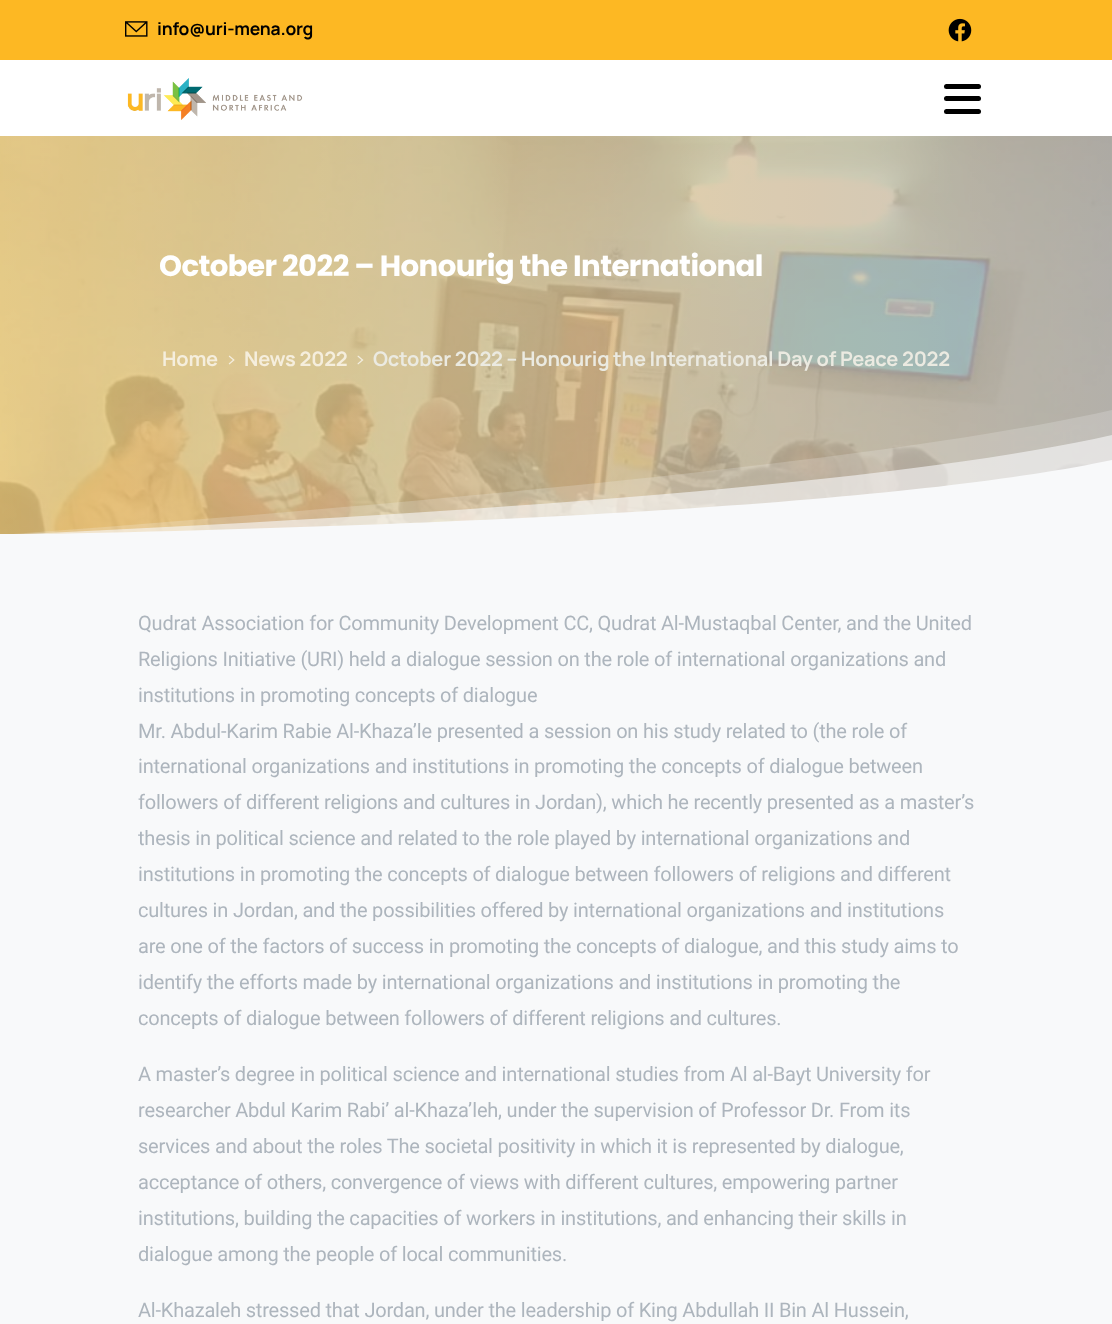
async function draw(canvas) {
  canvas.width = 1112;
  canvas.height = 1324;
  const ctx = canvas.getContext('2d');
  ctx.miterLimit = 4;
  ctx.fontKerning = 'normal';
  function label(s, x, y, font, color) {
    ctx.font = font;
    ctx.fillStyle = color;
    ctx.fillText(s, x, y);
  }
  function rect(x, y, w, h, color) {
    ctx.fillStyle = color;
    ctx.fillRect(x, y, w, h);
  }
  function roundedRect(x, y, w, h, r, color) {
    ctx.fillStyle = color;
    ctx.beginPath();
    ctx.roundRect(x, y, w, h, r);
    ctx.fill();
  }
  async function image(src, x, y, w, h) {
    const img = new Image();
    img.src = src;
    await img.decode();
    ctx.drawImage(img, x, y, w, h);
  }
  let gradient, path;

  rect(0, 0, 1112, 1324, '#fff');
  rect(0, 0, 1112, 60, '#fdb823');
  await image('assets/img1.png', 125, 21, 23, 16);
  ctx.letterSpacing = '-0.2px';
  label('info@uri-mena.org', 157, 35, 'bold 17.5px Manrope', '#000');
  await image('assets/img2.png', 948, 18, 24, 24);
  await image('assets/img3.png', 127, 78, 176, 42);
  roundedRect(944, 96, 37, 5, 2.5, '#000');
  roundedRect(944, 84, 37, 5, 2.5, '#000');
  roundedRect(944, 109, 37, 5, 2.5, '#000');
  gradient = ctx.createLinearGradient(0, 663, 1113, 663);
  gradient.addColorStop(0, '#fcd47e');
  gradient.addColorStop(1, '#bfb6ac');
  ctx.fillStyle = gradient;
  ctx.fillRect(0, 136, 1112, 398);
  await image('assets/img4.png', 0, 136, 1112, 398);
  ctx.letterSpacing = '-0.6px';
  label('October 2022 – Honourig the International', 159, 276, 'bold 29.25px Poppins', '#fff');
  ctx.letterSpacing = '-0.2px';
  label('Home', 162, 366, 'bold 20px Manrope', '#f5eedd');
  await image('assets/img5.png', 228, 355, 7, 10);
  label('News 2022', 244, 366, 'bold 20px Manrope', '#f5eedd');
  await image('assets/img6.png', 357, 355, 7, 10);
  label('October 2022 – Honourig the International Day of Peace 2022', 373, 366, 'bold 20px Manrope', '#ebeae1');
  ctx.fillStyle = '#f8f9fa33';
  path = new Path2D('M0 535C556 493 927 452 1112 410V535Z');
  ctx.fill(path);
  ctx.fillStyle = '#f8f9fa99';
  path = new Path2D('M0 535C556 510 927 477 1112 435V535Z');
  ctx.fill(path);
  ctx.fillStyle = '#f8f9fa';
  path = new Path2D('M0 535C556 524 927 499 1112 460V535Z');
  ctx.fill(path);
  rect(0, 534, 1112, 790, '#f8f9fa');
  label('Qudrat Association for Community Development CC, Qudrat Al-Mustaqbal Center, and the United', 138, 630, '20px Roboto', '#adb5bd');
  label('Religions Initiative (URI) held a dialogue session on the role of international organizations and', 138, 666, '20px Roboto', '#adb5bd');
  label('institutions in promoting concepts of dialogue', 138, 702, '20px Roboto', '#adb5bd');
  label('Mr. Abdul-Karim Rabie Al-Khaza’le presented a session on his study related to (the role of', 138, 738, '20px Roboto', '#adb5bd');
  label('international organizations and institutions in promoting the concepts of dialogue between', 138, 773, '20px Roboto', '#adb5bd');
  label('followers of different religions and cultures in Jordan), which he recently presented as a master’s', 138, 809, '20px Roboto', '#adb5bd');
  label('thesis in political science and related to the role played by international organizations and', 138, 845, '20px Roboto', '#adb5bd');
  label('institutions in promoting the concepts of dialogue between followers of religions and different', 138, 881, '20px Roboto', '#adb5bd');
  label('cultures in Jordan, and the possibilities offered by international organizations and institutions', 138, 917, '20px Roboto', '#adb5bd');
  label('are one of the factors of success in promoting the concepts of dialogue, and this study aims to', 138, 953, '20px Roboto', '#adb5bd');
  label('identify the efforts made by international organizations and institutions in promoting the', 138, 989, '20px Roboto', '#adb5bd');
  label('concepts of dialogue between followers of different religions and cultures.', 138, 1025, '20px Roboto', '#adb5bd');
  label('A master’s degree in political science and international studies from Al al-Bayt University for', 138, 1081, '20px Roboto', '#adb5bd');
  label('researcher Abdul Karim Rabi’ al-Khaza’leh, under the supervision of Professor Dr. From its', 138, 1117, '20px Roboto', '#adb5bd');
  label('services and about the roles The societal positivity in which it is represented by dialogue,', 138, 1153, '20px Roboto', '#adb5bd');
  label('acceptance of others, convergence of views with different cultures, empowering partner', 138, 1189, '20px Roboto', '#adb5bd');
  label('institutions, building the capacities of workers in institutions, and enhancing their skills in', 138, 1225, '20px Roboto', '#adb5bd');
  label('dialogue among the people of local communities.', 138, 1261, '20px Roboto', '#adb5bd');
  label('Al-Khazaleh stressed that Jordan, under the leadership of King Abdullah II Bin Al Hussein,', 138, 1317, '20px Roboto', '#adb5bd');
}

draw(document.querySelector('canvas'));
